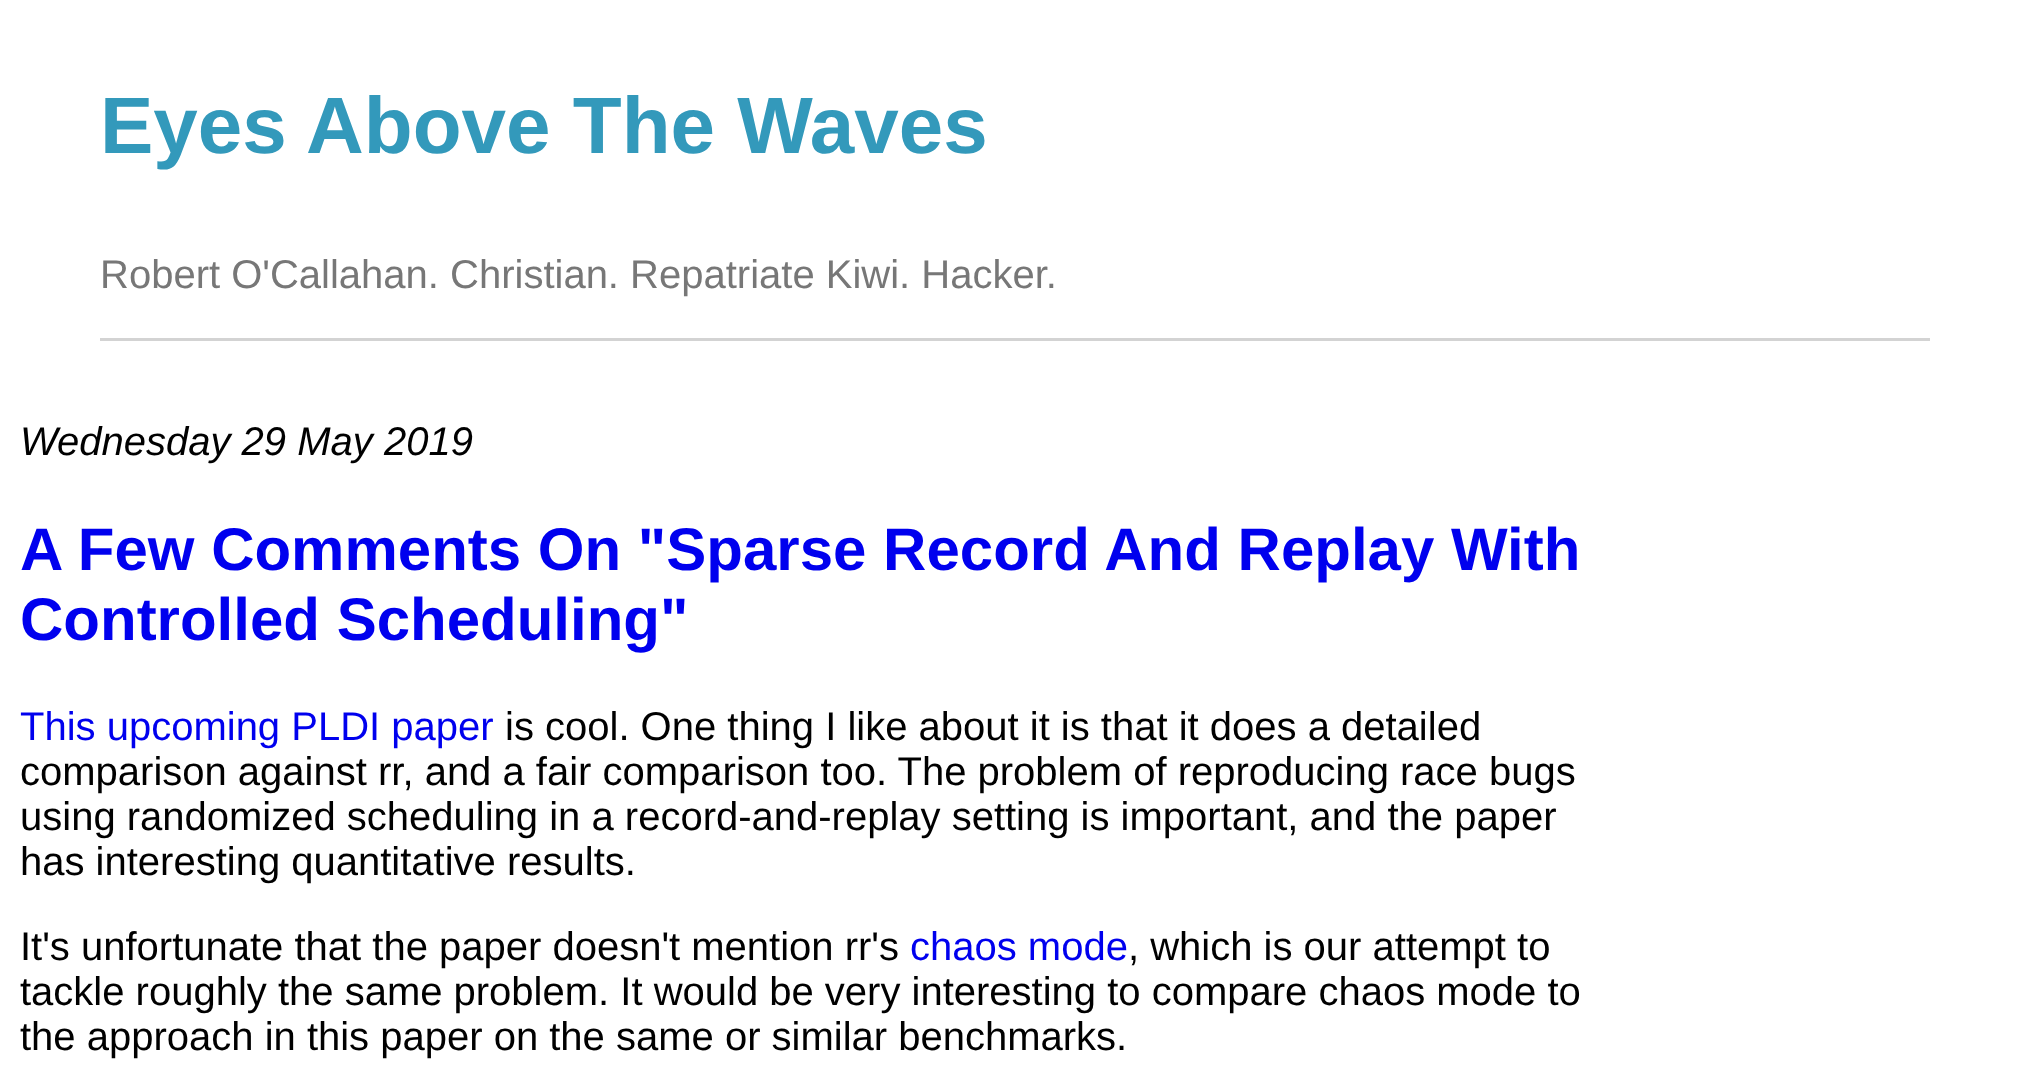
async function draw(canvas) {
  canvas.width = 2029;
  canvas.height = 1071;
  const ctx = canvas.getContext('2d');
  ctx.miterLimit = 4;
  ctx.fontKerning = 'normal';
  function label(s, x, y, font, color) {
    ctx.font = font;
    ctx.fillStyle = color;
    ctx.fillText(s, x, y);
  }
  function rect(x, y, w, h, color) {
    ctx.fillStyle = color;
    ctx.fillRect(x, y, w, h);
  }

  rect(0, 0, 2029, 1071, '#fff');
  label('Eyes Above The Waves', 100, 153, 'bold 80px Liberation Sans', '#39b');
  label('Robert O\'Callahan. Christian. Repatriate Kiwi. Hacker.', 100, 288, '40px Liberation Sans', '#777');
  rect(100, 338, 1830, 3, '#d3d3d3');
  label('Wednesday 29 May 2019', 20, 455, 'italic 40px Liberation Sans', '#000');
  label('A Few Comments On "Sparse Record And Replay With', 20, 570, 'bold 60px Liberation Sans', '#00e');
  label('Controlled Scheduling"', 20, 640, 'bold 60px Liberation Sans', '#00e');
  label('This upcoming PLDI paper', 20, 740, '40px Liberation Sans', '#00e');
  label('is cool. One thing I like about it is that it does a detailed', 505, 740, '40px Liberation Sans', '#000');
  label('comparison against rr, and a fair comparison too. The problem of reproducing race bugs', 20, 785, '40px Liberation Sans', '#000');
  label('using randomized scheduling in a record-and-replay setting is important, and the paper', 20, 830, '40px Liberation Sans', '#000');
  label('has interesting quantitative results.', 20, 875, '40px Liberation Sans', '#000');
  label('It\'s unfortunate that the paper doesn\'t mention rr\'s', 20, 960, '40px Liberation Sans', '#000');
  label('chaos mode', 910, 960, '40px Liberation Sans', '#00e');
  label(', which is our attempt to', 1128, 960, '40px Liberation Sans', '#000');
  label('tackle roughly the same problem. It would be very interesting to compare chaos mode to', 20, 1005, '40px Liberation Sans', '#000');
  label('the approach in this paper on the same or similar benchmarks.', 20, 1050, '40px Liberation Sans', '#000');
}

draw(document.querySelector('canvas'));
